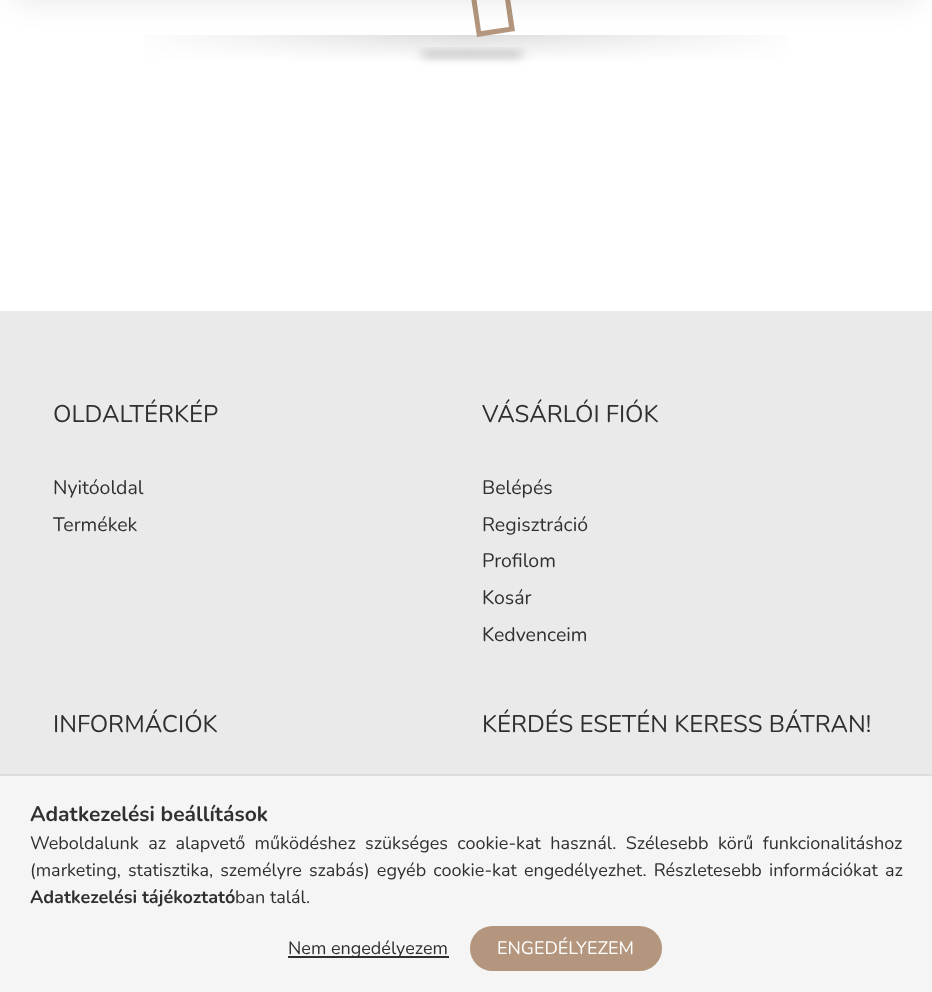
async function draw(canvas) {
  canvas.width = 932;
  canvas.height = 992;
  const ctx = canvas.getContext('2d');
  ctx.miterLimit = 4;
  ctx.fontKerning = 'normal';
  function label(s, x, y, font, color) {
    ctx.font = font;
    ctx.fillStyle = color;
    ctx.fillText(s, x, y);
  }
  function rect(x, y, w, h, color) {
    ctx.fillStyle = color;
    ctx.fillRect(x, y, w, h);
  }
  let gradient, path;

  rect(0, 0, 932, 992, '#fff');
  gradient = ctx.createLinearGradient(30, 48, 903, 48);
  gradient.addColorStop(0.1, '#fff');
  gradient.addColorStop(0.5, '#ddd');
  gradient.addColorStop(0.9, '#fff');
  ctx.fillStyle = gradient;
  ctx.fillRect(143, 35, 647, 27);
  ctx.fillStyle = '#b3967d';
  path = new Path2D('M505-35L515 31L477 37L467-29ZM501-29L473-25L481 31L509 27Z');
  ctx.fill(path);
  gradient = ctx.createLinearGradient(467, 62, 467, 35);
  gradient.addColorStop(0, '#fff');
  gradient.addColorStop(1, '#ffffff00');
  ctx.fillStyle = gradient;
  ctx.fillRect(143, 37, 647, 25);
  ctx.fillStyle = '#0000001a';
  ctx.filter = 'blur(15px)';
  ctx.beginPath();
  ctx.rect(15, -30, 903, 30);
  ctx.fill();
  ctx.filter = 'none';
  ctx.save();
  path = new Path2D('M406 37H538V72H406ZM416 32H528V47H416Z');
  ctx.clip(path, 'evenodd');
  ctx.fillStyle = '#808080';
  ctx.filter = 'blur(5px)';
  ctx.beginPath();
  ctx.rect(422, 53, 100, 3);
  ctx.fill();
  ctx.filter = 'none';
  ctx.restore();
  rect(0, 311, 932, 463, '#eaeaea');
  label('OLDALTÉRKÉP', 53, 422, '24px Nunito', '#303030');
  label('Nyitóoldal', 53, 494, '19.5px Nunito', '#303030');
  label('Termékek', 53, 531, '19.5px Nunito', '#303030');
  label('VÁSÁRLÓI FIÓK', 482, 422, '24px Nunito', '#303030');
  label('Belépés', 482, 494, '19.5px Nunito', '#303030');
  label('Regisztráció', 482, 531, '19.5px Nunito', '#303030');
  label('Profilom', 482, 567, '19.5px Nunito', '#303030');
  label('Kosár', 482, 604, '19.5px Nunito', '#303030');
  label('Kedvenceim', 482, 641, '19.5px Nunito', '#303030');
  label('INFORMÁCIÓK', 53, 732, '24px Nunito', '#303030');
  label('KÉRDÉS ESETÉN KERESS BÁTRAN!', 482, 732, '24px Nunito', '#303030');
  rect(0, 776, 932, 216, '#f5f5f5');
  rect(0, 774, 932, 2, '#ddd');
  label('Adatkezelési beállítások', 30, 821, 'bold 21px Nunito', '#303030');
  ctx.wordSpacing = '4.75px';
  label('Weboldalunk az alapvető működéshez szükséges cookie-kat használ. Szélesebb körű funkcionalitáshoz', 30, 849, '18px Nunito', '#303030');
  ctx.wordSpacing = '2.5px';
  label('(marketing, statisztika, személyre szabás) egyéb cookie-kat engedélyezhet. Részletesebb információkat az', 30, 876, '18px Nunito', '#303030');
  ctx.wordSpacing = '0px';
  label('Adatkezelési tájékoztató', 30, 903, 'bold 18px Nunito', '#303030');
  label('ban talál.', 235, 903, '18px Nunito', '#303030');
  rect(288, 956, 161, 2, '#303030');
  label('Nem engedélyezem', 288, 954, '18px Nunito', '#303030');
  ctx.fillStyle = '#b3967d';
  ctx.beginPath();
  ctx.roundRect(471, 927, 190, 43, 21.5);
  ctx.fill();
  ctx.strokeStyle = '#b3967d';
  ctx.lineWidth = 2;
  ctx.stroke();
  label('ENGEDÉLYEZEM', 497, 954, '18px Nunito', '#fff');
}

draw(document.querySelector('canvas'));
